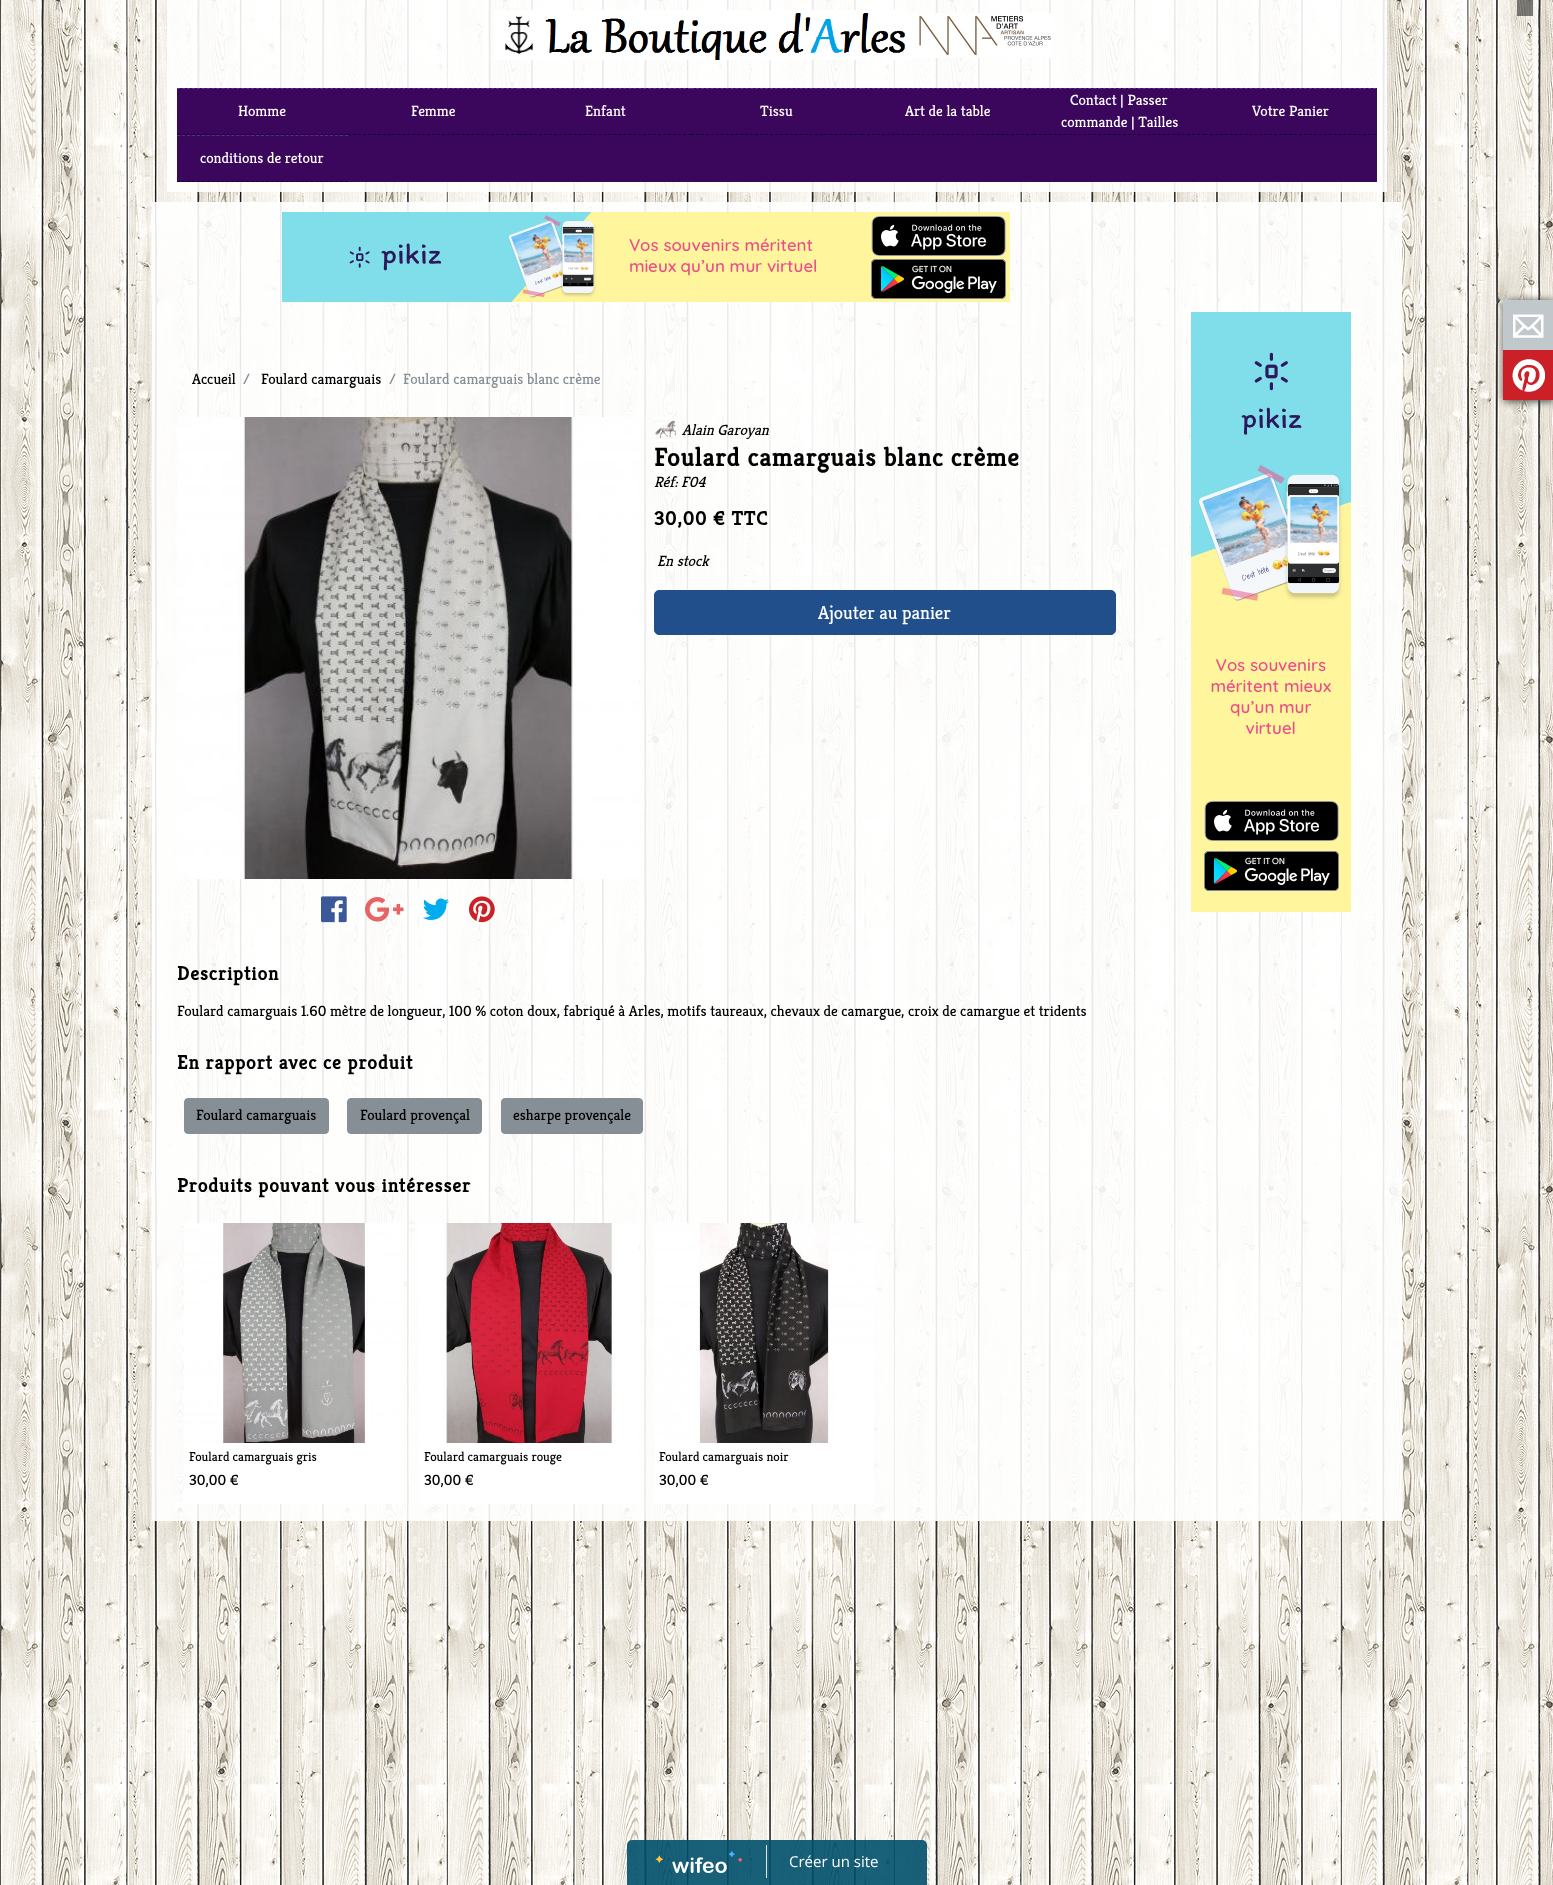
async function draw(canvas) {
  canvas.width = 1553;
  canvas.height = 1885;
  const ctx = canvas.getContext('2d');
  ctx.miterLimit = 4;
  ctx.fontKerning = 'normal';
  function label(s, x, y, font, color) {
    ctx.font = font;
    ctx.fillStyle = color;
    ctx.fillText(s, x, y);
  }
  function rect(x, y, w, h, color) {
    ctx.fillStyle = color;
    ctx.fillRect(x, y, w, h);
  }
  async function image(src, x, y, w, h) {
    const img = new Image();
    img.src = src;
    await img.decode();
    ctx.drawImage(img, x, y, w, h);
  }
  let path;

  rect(0, 0, 1553, 1885, '#fff');
  await image('assets/img1.png', 0, 0, 1553, 1885);
  rect(1517, 0, 16, 16, '#00000080');
  rect(167, 0, 1220, 78, '#ffffffe6');
  await image('assets/img2.png', 494, 10, 50, 50);
  await image('assets/img3.png', 544, 10, 366, 50);
  await image('assets/img4.png', 910, 13, 141, 45);
  rect(167, 78, 1220, 114, '#ffffffe6');
  rect(177, 88, 1200, 94, '#3a075c');
  path = new Path2D('M177 88.5H348');
  ctx.strokeStyle = '#622f84';
  ctx.setLineDash([3, 1.94]);
  ctx.stroke(path);
  path = new Path2D('M177 134.5H348');
  ctx.strokeStyle = '#120034';
  ctx.stroke(path);
  label('Homme', 238, 116, '300 15px Kreon', '#fff');
  path = new Path2D('M348 88.5H519');
  ctx.strokeStyle = '#622f84';
  ctx.stroke(path);
  path = new Path2D('M348 134.5H519');
  ctx.strokeStyle = '#120034';
  ctx.stroke(path);
  label('Femme', 411, 116, '300 15px Kreon', '#fff');
  path = new Path2D('M519 88.5H691');
  ctx.strokeStyle = '#622f84';
  ctx.setLineDash([3, 1.97]);
  ctx.stroke(path);
  path = new Path2D('M519 134.5H691');
  ctx.strokeStyle = '#120034';
  ctx.stroke(path);
  label('Enfant', 585, 116, '300 15px Kreon', '#fff');
  path = new Path2D('M691 88.5H862');
  ctx.strokeStyle = '#622f84';
  ctx.setLineDash([3, 1.94]);
  ctx.stroke(path);
  path = new Path2D('M691 134.5H862');
  ctx.strokeStyle = '#120034';
  ctx.stroke(path);
  label('Tissu', 760, 116, '300 15px Kreon', '#fff');
  path = new Path2D('M862 88.5H1034');
  ctx.strokeStyle = '#622f84';
  ctx.setLineDash([3, 1.97]);
  ctx.stroke(path);
  path = new Path2D('M862 134.5H1034');
  ctx.strokeStyle = '#120034';
  ctx.stroke(path);
  label('Art de la table', 905, 116, '300 15px Kreon', '#fff');
  path = new Path2D('M1034 88.5H1205');
  ctx.strokeStyle = '#622f84';
  ctx.setLineDash([3, 1.94]);
  ctx.stroke(path);
  path = new Path2D('M1034 134.5H1205');
  ctx.strokeStyle = '#120034';
  ctx.stroke(path);
  label('Contact | Passer', 1070, 105, '300 15px Kreon', '#fff');
  label('commande | Tailles', 1061, 127, '300 15px Kreon', '#fff');
  path = new Path2D('M1205 88.5H1376');
  ctx.strokeStyle = '#622f84';
  ctx.stroke(path);
  path = new Path2D('M1205 134.5H1376');
  ctx.strokeStyle = '#120034';
  ctx.stroke(path);
  label('Votre Panier', 1252, 116, '300 15px Kreon', '#fff');
  path = new Path2D('M177 135.5H348');
  ctx.strokeStyle = '#622f84';
  ctx.stroke(path);
  path = new Path2D('M177 181.5H348');
  ctx.strokeStyle = '#120034';
  ctx.stroke(path);
  label('conditions de retour', 200, 163, '300 15px Kreon', '#fff');
  ctx.fillStyle = '#333';
  ctx.filter = 'blur(4px)';
  ctx.beginPath();
  ctx.rect(1504, 301, 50, 100);
  ctx.fill();
  ctx.filter = 'none';
  rect(1503, 300, 50, 50, '#c0c8cc');
  await image('assets/img5.png', 1513, 314, 31, 24);
  rect(1503, 350, 50, 50, '#cb2027');
  await image('assets/img6.png', 1512, 359, 33, 33);
  rect(152, 202, 1250, 1319, '#ffffffe6');
  await image('assets/img7.png', 282, 212, 728, 90);
  label('Accueil', 192, 384, '300 15px Kreon', '#000');
  label('/', 243, 384, '300 15px Kreon', '#868e96');
  label('Foulard camarguais', 261, 384, '300 15px Kreon', '#000');
  label('/', 389, 384, '300 15px Kreon', '#868e96');
  label('Foulard camarguais blanc crème', 403, 384, '300 15px Kreon', '#868e96');
  await image('assets/img8.png', 177, 417, 462, 462);
  await image('assets/img9.png', 321, 896, 26, 27);
  await image('assets/img10.png', 365, 897, 39, 25);
  await image('assets/img11.png', 423, 898, 26, 22);
  await image('assets/img12.png', 469, 896, 26, 27);
  await image('assets/img13.png', 654, 417, 25, 25);
  label('Alain Garoyan', 682, 435, 'italic 300 15px Kreon', '#000');
  ctx.letterSpacing = '1px';
  label('Foulard camarguais blanc crème', 654, 466, 'bold 25.5px Kreon', '#000');
  ctx.letterSpacing = '0px';
  label('Réf: F04', 654, 487, 'italic 300 15px Kreon', '#000');
  ctx.letterSpacing = '1px';
  label('30,00 € TTC', 654, 525, 'bold 19.5px Kreon', '#000');
  ctx.letterSpacing = '0px';
  label('En stock', 657, 566, 'italic 300 15px Kreon', '#000');
  ctx.fillStyle = '#204f8c';
  ctx.beginPath();
  ctx.roundRect(654.5, 590.5, 461, 44, 4.5);
  ctx.fill();
  ctx.strokeStyle = '#204f8c';
  ctx.setLineDash([]);
  ctx.stroke();
  label('Ajouter au panier', 818, 619, '300 18.75px Kreon', '#fff');
  ctx.letterSpacing = '1px';
  label('Description', 177, 980, 'bold 19.5px Kreon', '#000');
  ctx.letterSpacing = '0px';
  label('Foulard camarguais 1.60 mètre de longueur, 100 % coton doux, fabriqué à Arles, motifs taureaux, chevaux de camargue, croix de camargue et tridents', 177, 1016, '300 15px Kreon', '#000');
  ctx.letterSpacing = '1px';
  label('En rapport avec ce produit', 177, 1069, 'bold 19.5px Kreon', '#000');
  ctx.fillStyle = '#868e96';
  ctx.beginPath();
  ctx.roundRect(184.5, 1098.5, 144, 35, 3.5);
  ctx.fill();
  ctx.strokeStyle = '#868e96';
  ctx.stroke();
  ctx.letterSpacing = '0px';
  label('Foulard camarguais', 196, 1120, '300 15px Kreon', '#000');
  ctx.fillStyle = '#868e96';
  ctx.beginPath();
  ctx.roundRect(347.5, 1098.5, 134, 35, 3.5);
  ctx.fill();
  ctx.stroke();
  label('Foulard provençal', 360, 1120, '300 15px Kreon', '#000');
  ctx.fillStyle = '#868e96';
  ctx.beginPath();
  ctx.roundRect(501.5, 1098.5, 141, 35, 3.5);
  ctx.fill();
  ctx.stroke();
  label('esharpe provençale', 513, 1120, '300 15px Kreon', '#000');
  ctx.letterSpacing = '1px';
  label('Produits pouvant vous intéresser', 177, 1192, 'bold 19.5px Kreon', '#000');
  await image('assets/img14.png', 184, 1223, 220, 220);
  rect(184, 1443, 220, 61, '#fff');
  ctx.letterSpacing = '0px';
  label('Foulard camarguais gris', 189, 1461, '300 13px Kreon', '#000');
  label('30,00 €', 189, 1485, '300 15px Kreon', '#000');
  await image('assets/img15.png', 419, 1223, 220, 220);
  rect(419, 1443, 220, 61, '#fff');
  label('Foulard camarguais rouge', 424, 1461, '300 13px Kreon', '#000');
  label('30,00 €', 424, 1485, '300 15px Kreon', '#000');
  await image('assets/img16.png', 654, 1223, 220, 220);
  rect(654, 1443, 220, 61, '#fff');
  label('Foulard camarguais noir', 659, 1461, '300 13px Kreon', '#000');
  label('30,00 €', 659, 1485, '300 15px Kreon', '#000');
  await image('assets/img17.png', 1191, 312, 160, 600);
  ctx.fillStyle = '#00506be6';
  ctx.beginPath();
  ctx.roundRect(627, 1840, 300, 45, [5, 5, 0, 0]);
  ctx.fill();
  rect(766, 1845, 1, 33, '#e7e7e7');
  await image('assets/img18.png', 655, 1851, 88, 22);
  label('Créer un site', 789, 1867, '15px Open Sans', '#fff');
}

draw(document.querySelector('canvas'));
